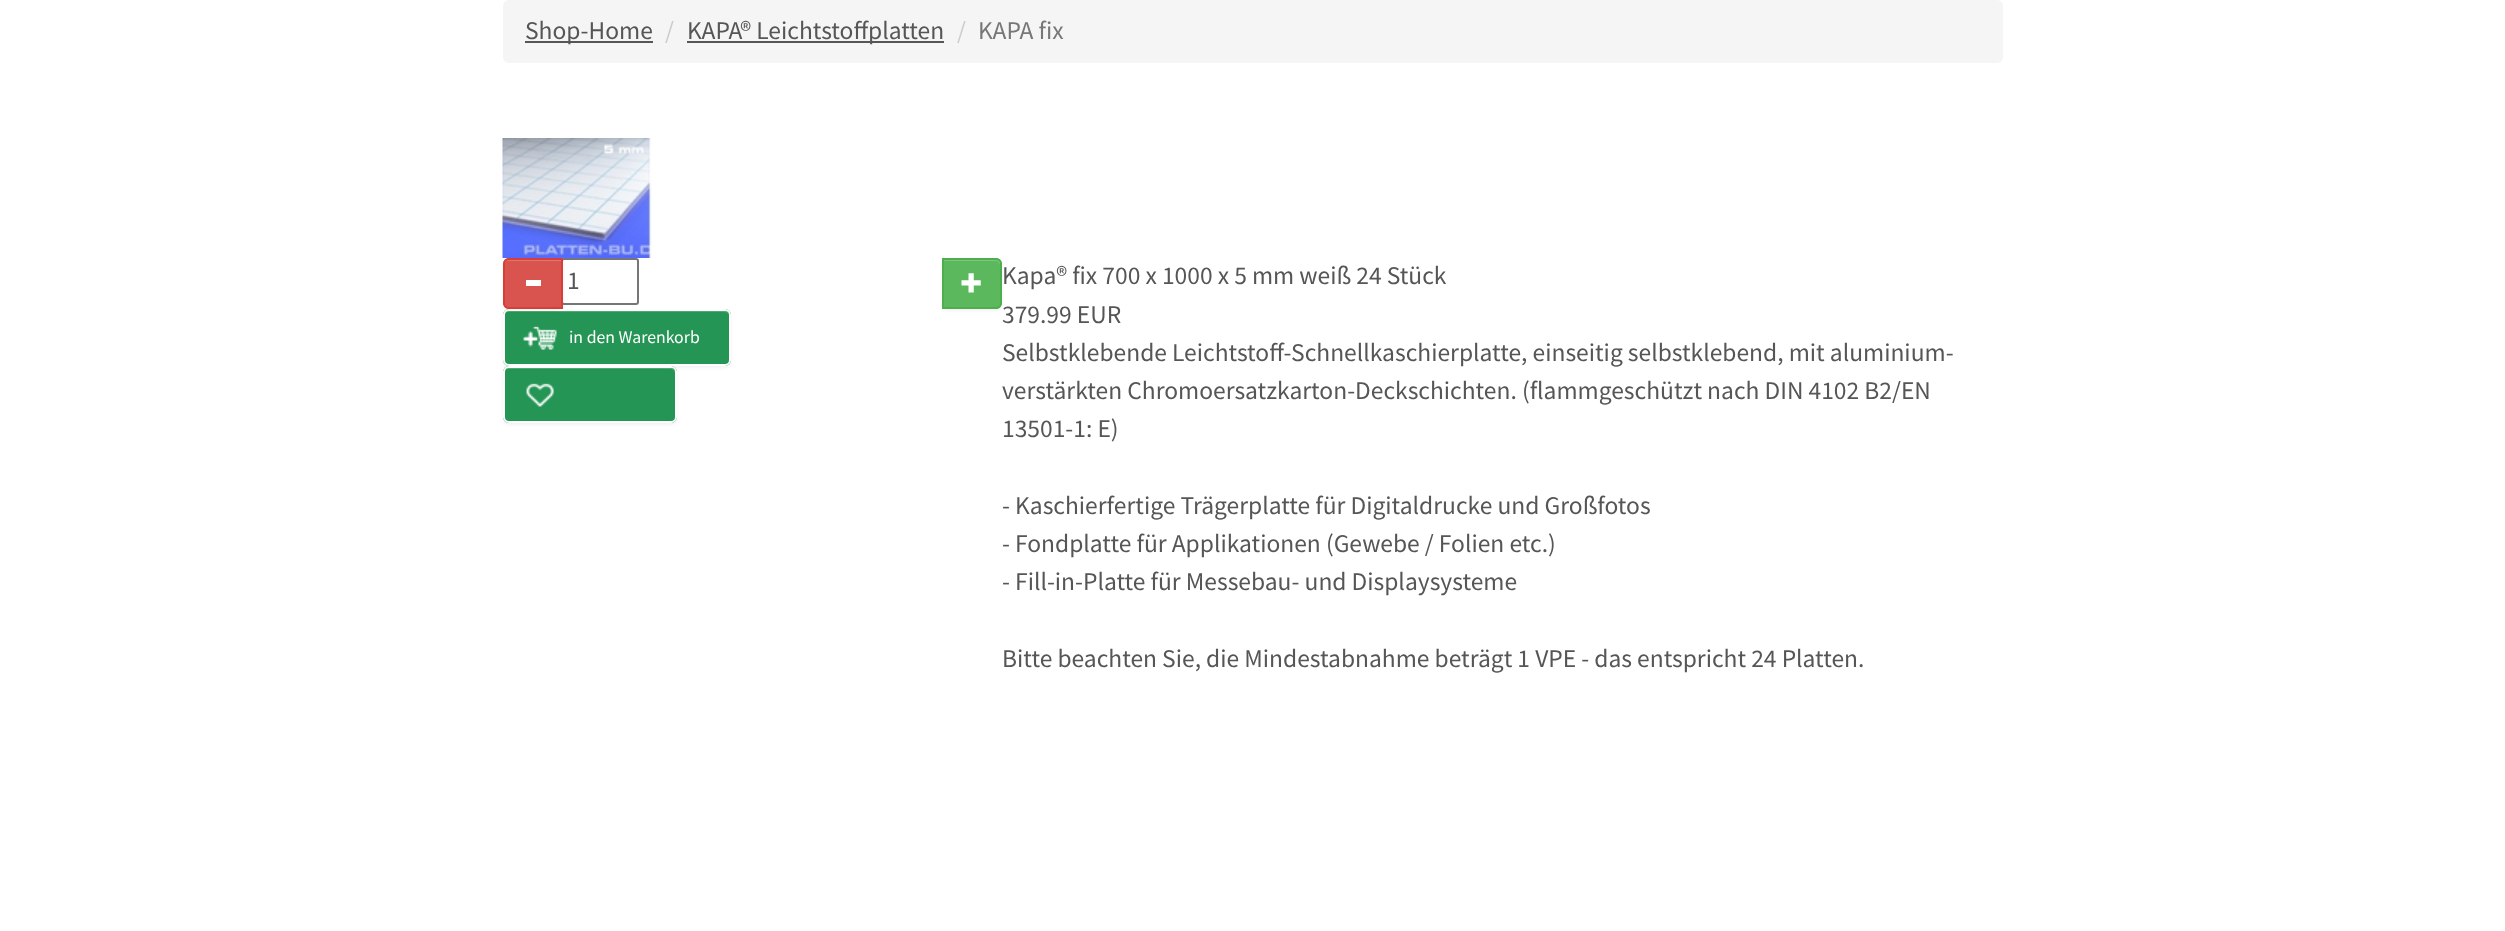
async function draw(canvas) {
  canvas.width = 2505;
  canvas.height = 931;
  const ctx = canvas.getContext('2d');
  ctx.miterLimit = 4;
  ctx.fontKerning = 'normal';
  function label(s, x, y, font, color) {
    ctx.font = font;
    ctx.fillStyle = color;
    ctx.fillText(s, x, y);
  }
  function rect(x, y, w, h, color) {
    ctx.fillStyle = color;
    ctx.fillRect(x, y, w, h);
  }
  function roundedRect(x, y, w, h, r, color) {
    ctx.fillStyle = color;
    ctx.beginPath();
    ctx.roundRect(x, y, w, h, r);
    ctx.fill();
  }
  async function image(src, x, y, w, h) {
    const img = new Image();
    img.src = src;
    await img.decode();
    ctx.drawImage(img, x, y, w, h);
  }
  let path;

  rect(0, 0, 2505, 931, '#fff');
  roundedRect(503, 0, 1500, 63, 6, '#f5f5f5');
  rect(525, 41, 128, 2, '#565656');
  label('Shop-Home', 525, 39, '25.5px Source Sans Pro', '#565656');
  label('/', 665, 39, '25.5px Source Sans Pro', '#ccc');
  rect(687, 41, 257, 2, '#565656');
  label('KAPA® Leichtstoffplatten', 687, 39, '25.5px Source Sans Pro', '#565656');
  label('/', 957, 39, '25.5px Source Sans Pro', '#ccc');
  label('KAPA fix', 978, 39, '25.5px Source Sans Pro', '#777');
  await image('assets/img1.png', 502, 138, 150, 120);
  ctx.beginPath();
  ctx.roundRect(562, 259, 76, 45, 2);
  ctx.strokeStyle = '#767676';
  ctx.lineWidth = 2;
  ctx.stroke();
  ctx.fillStyle = '#0000000d';
  ctx.filter = 'blur(1.5px)';
  ctx.beginPath();
  ctx.roundRect(503, 311, 228, 57, 6);
  ctx.fill();
  ctx.filter = 'none';
  roundedRect(503, 309, 228, 57, 6, '#249554');
  ctx.fillStyle = '#50aa76';
  path = new Path2D('M508 312H724C727 312 729 314 729 316C729 313 727 311 724 311H509C506 311 504 313 504 316C504 314 506 312 508 312Z');
  ctx.fill(path);
  ctx.beginPath();
  ctx.roundRect(504, 310, 226, 55, 5);
  ctx.strokeStyle = '#fff';
  ctx.stroke();
  ctx.fillStyle = '#0000000d';
  ctx.filter = 'blur(1.5px)';
  ctx.beginPath();
  ctx.roundRect(503, 260, 60, 51, 6);
  ctx.fill();
  ctx.filter = 'none';
  ctx.fillStyle = '#d9534f';
  ctx.beginPath();
  ctx.roundRect(503, 258, 60, 51, [6, 0, 0, 6]);
  ctx.fill();
  ctx.fillStyle = '#e17572';
  path = new Path2D('M508 261H561V260H509C506 260 504 262 504 265V266C504 263 506 261 508 261Z');
  ctx.fill(path);
  ctx.beginPath();
  ctx.roundRect(504, 259, 58, 49, [5, 0, 0, 5]);
  ctx.strokeStyle = '#d43f3a';
  ctx.stroke();
  rect(526, 280, 15, 6, '#fff');
  label('1', 567, 289, '25.5px Source Sans Pro', '#565656');
  ctx.fillStyle = '#0000000d';
  ctx.filter = 'blur(1.5px)';
  ctx.beginPath();
  ctx.roundRect(942, 260, 60, 51, 6);
  ctx.fill();
  ctx.filter = 'none';
  ctx.fillStyle = '#5cb85c';
  ctx.beginPath();
  ctx.roundRect(942, 258, 60, 51, [0, 6, 6, 0]);
  ctx.fill();
  ctx.fillStyle = '#7dc67d';
  path = new Path2D('M944 261H996C998 261 1000 263 1000 266V304L999 307C1000 306 1001 304 1001 303V265C1001 262 999 260 996 260H944Z');
  ctx.fill(path);
  ctx.beginPath();
  ctx.roundRect(943, 259, 58, 49, [0, 5, 5, 0]);
  ctx.strokeStyle = '#4cae4c';
  ctx.stroke();
  await image('assets/img2.png', 961, 273, 20, 20);
  await image('assets/img3.png', 523, 326, 34, 24);
  label('in den Warenkorb', 569, 343, '17.75px Source Sans Pro', '#fff');
  ctx.fillStyle = '#0000000d';
  ctx.filter = 'blur(1.5px)';
  ctx.beginPath();
  ctx.roundRect(503, 368, 174, 57, 6);
  ctx.fill();
  ctx.filter = 'none';
  roundedRect(503, 366, 174, 57, 6, '#249554');
  ctx.fillStyle = '#50aa76';
  path = new Path2D('M508 369H670C673 369 675 371 675 374V373C675 370 673 368 670 368H509C506 368 504 370 504 373V374C504 371 506 369 508 369Z');
  ctx.fill(path);
  ctx.beginPath();
  ctx.roundRect(504, 367, 172, 55, 5);
  ctx.strokeStyle = '#fff';
  ctx.stroke();
  await image('assets/img4.png', 526, 383, 28, 24);
  label('Kapa® fix 700 x 1000 x 5 mm weiß 24 Stück', 1002, 284, '25.5px Source Sans Pro', '#565656');
  label('379.99 EUR', 1002, 323, '25.5px Source Sans Pro', '#565656');
  label('Selbstklebende Leichtstoff-Schnellkaschierplatte, einseitig selbstklebend, mit aluminium-', 1002, 361, '25.5px Source Sans Pro', '#565656');
  label('verstärkten Chromoersatzkarton-Deckschichten. (flammgeschützt nach DIN 4102 B2/EN', 1002, 399, '25.5px Source Sans Pro', '#565656');
  label('13501-1: E)', 1002, 437, '25.5px Source Sans Pro', '#565656');
  label('- Kaschierfertige Trägerplatte für Digitaldrucke und Großfotos', 1002, 514, '25.5px Source Sans Pro', '#565656');
  label('- Fondplatte für Applikationen (Gewebe / Folien etc.)', 1002, 552, '25.5px Source Sans Pro', '#565656');
  label('- Fill-in-Platte für Messebau- und Displaysysteme', 1002, 590, '25.5px Source Sans Pro', '#565656');
  label('Bitte beachten Sie, die Mindestabnahme beträgt 1 VPE - das entspricht 24 Platten.', 1002, 667, '25.5px Source Sans Pro', '#565656');
}

draw(document.querySelector('canvas'));
